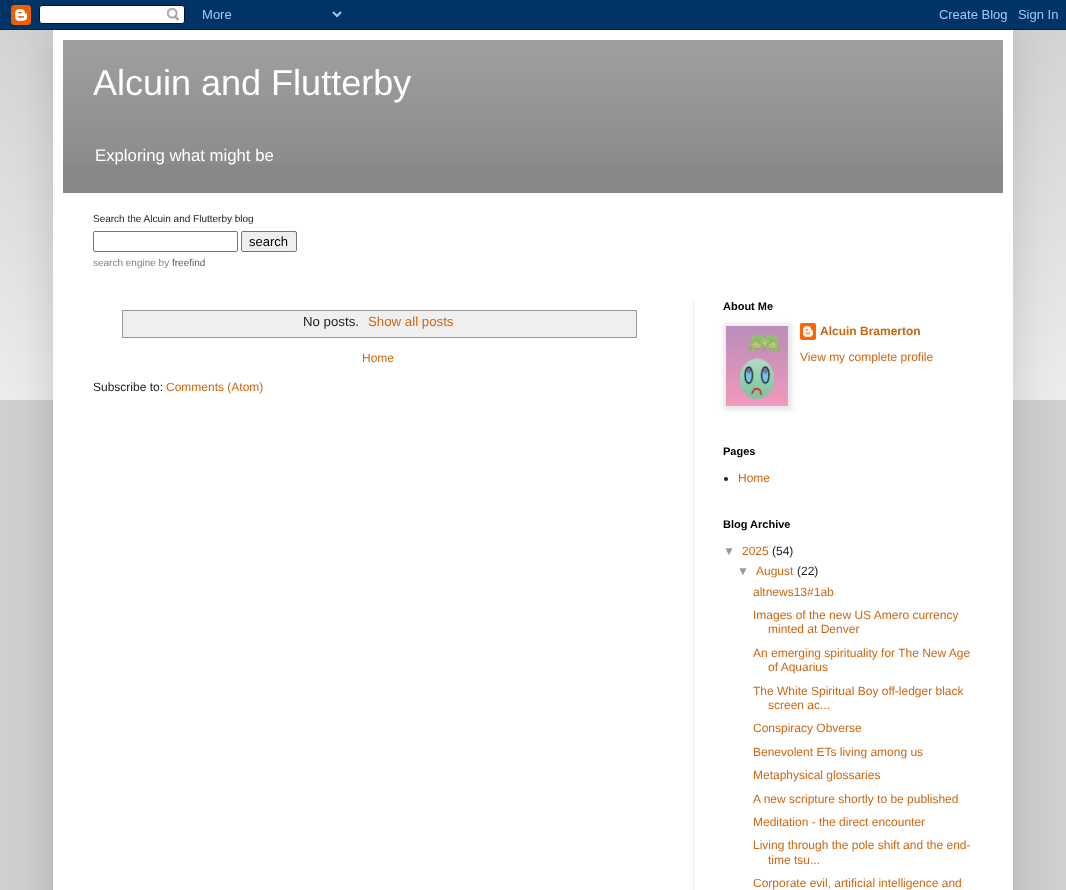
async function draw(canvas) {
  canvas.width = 1066;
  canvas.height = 890;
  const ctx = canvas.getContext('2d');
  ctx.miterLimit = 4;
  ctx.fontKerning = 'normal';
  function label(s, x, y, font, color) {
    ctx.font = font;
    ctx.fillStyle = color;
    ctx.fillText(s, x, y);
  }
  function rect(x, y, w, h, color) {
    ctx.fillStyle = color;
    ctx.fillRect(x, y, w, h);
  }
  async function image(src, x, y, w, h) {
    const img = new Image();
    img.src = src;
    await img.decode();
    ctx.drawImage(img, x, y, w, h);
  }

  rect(0, 0, 1066, 890, '#cfcfcf');
  await image('assets/img2.png', 0, 30, 1066, 370);
  ctx.fillStyle = '#00000026';
  ctx.filter = 'blur(20px)';
  ctx.beginPath();
  ctx.rect(53, 30, 960, 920);
  ctx.fill();
  ctx.filter = 'none';
  await image('assets/img1.png', 0, 0, 1066, 30);
  rect(53, 30, 960, 860, '#fff');
  rect(63, 40, 940, 153, '#888');
  await image('assets/img3.png', 63, 40, 940, 124);
  label('Alcuin and Flutterby', 93, 95, '36px Liberation Sans', '#fff');
  label('Exploring what might be', 95, 161, '16.75px Liberation Sans', '#fff');
  label('Search the Alcuin and Flutterby blog', 93, 222, '10px Liberation Sans', '#222');
  ctx.beginPath();
  ctx.roundRect(93.5, 231.5, 144, 20, 1.5);
  ctx.strokeStyle = '#767676';
  ctx.stroke();
  ctx.fillStyle = '#efefef';
  ctx.beginPath();
  ctx.roundRect(241.5, 231.5, 55, 20, 1.5);
  ctx.fill();
  ctx.stroke();
  label('search', 249, 246, '13px Liberation Sans', '#000');
  label('search engine by', 93, 266, '10px Liberation Sans', '#808080');
  label('freefind', 172, 266, '10px Liberation Sans', '#606060');
  rect(693, 300, 1, 590, '#eee');
  ctx.strokeStyle = '#999';
  ctx.strokeRect(122.5, 310.5, 514, 27);
  rect(123, 311, 513, 26, '#efefef');
  label('No posts.', 303, 326, '13.25px Liberation Sans', '#222');
  label('Show all posts', 368, 326, '13.25px Liberation Sans', '#c61');
  label('Home', 362, 362, '12px Liberation Sans', '#c61');
  label('Subscribe to:', 93, 391, '12px Liberation Sans', '#222');
  label('Comments (Atom)', 166, 391, '12px Liberation Sans', '#c61');
  label('About Me', 723, 310, 'bold 11px Liberation Sans', '#000');
  await image('assets/img5.png', 800, 323, 16, 17);
  ctx.fillStyle = '#0000001a';
  ctx.filter = 'blur(2.5px)';
  ctx.beginPath();
  ctx.rect(724, 324, 68, 86);
  ctx.fill();
  ctx.filter = 'none';
  ctx.strokeStyle = '#eee';
  ctx.strokeRect(723.5, 323.5, 67, 85);
  await image('assets/img4.png', 726, 326, 62, 80);
  label('Alcuin Bramerton', 820, 335, 'bold 12px Liberation Sans', '#c61');
  label('View my complete profile', 800, 361, '12px Liberation Sans', '#c61');
  label('Pages', 723, 455, 'bold 11px Liberation Sans', '#000');
  ctx.fillStyle = '#222';
  ctx.beginPath();
  ctx.arc(726, 479, 2, 0, 2 * Math.PI);
  ctx.fill();
  label('Home', 738, 482, '12px Liberation Sans', '#c61');
  label('Blog Archive', 723, 528, 'bold 11px Liberation Sans', '#000');
  label('▼', 723, 555, '12px Liberation Sans', '#999');
  label('2025', 742, 555, '12px Liberation Sans', '#c61');
  label('(54)', 772, 555, '12px Liberation Sans', '#222');
  label('▼', 737, 575, '12px Liberation Sans', '#999');
  label('August', 756, 575, '12px Liberation Sans', '#c61');
  label('(22)', 797, 575, '12px Liberation Sans', '#222');
  label('altnews13#1ab', 753, 596, '12px Liberation Sans', '#c61');
  label('Images of the new US Amero currency', 753, 619, '12px Liberation Sans', '#c61');
  label('minted at Denver', 768, 633, '12px Liberation Sans', '#c61');
  label('An emerging spirituality for The New Age', 753, 657, '12px Liberation Sans', '#c61');
  label('of Aquarius', 768, 671, '12px Liberation Sans', '#c61');
  label('The White Spiritual Boy off-ledger black', 753, 695, '12px Liberation Sans', '#c61');
  label('screen ac...', 768, 709, '12px Liberation Sans', '#c61');
  label('Conspiracy Obverse', 753, 732, '12px Liberation Sans', '#c61');
  label('Benevolent ETs living among us', 753, 756, '12px Liberation Sans', '#c61');
  label('Metaphysical glossaries', 753, 779, '12px Liberation Sans', '#c61');
  label('A new scripture shortly to be published', 753, 803, '12px Liberation Sans', '#c61');
  label('Meditation - the direct encounter', 753, 826, '12px Liberation Sans', '#c61');
  label('Living through the pole shift and the end-', 753, 849, '12px Liberation Sans', '#c61');
  label('time tsu...', 768, 864, '12px Liberation Sans', '#c61');
  label('Corporate evil, artificial intelligence and', 753, 887, '12px Liberation Sans', '#c61');
}

draw(document.querySelector('canvas'));
